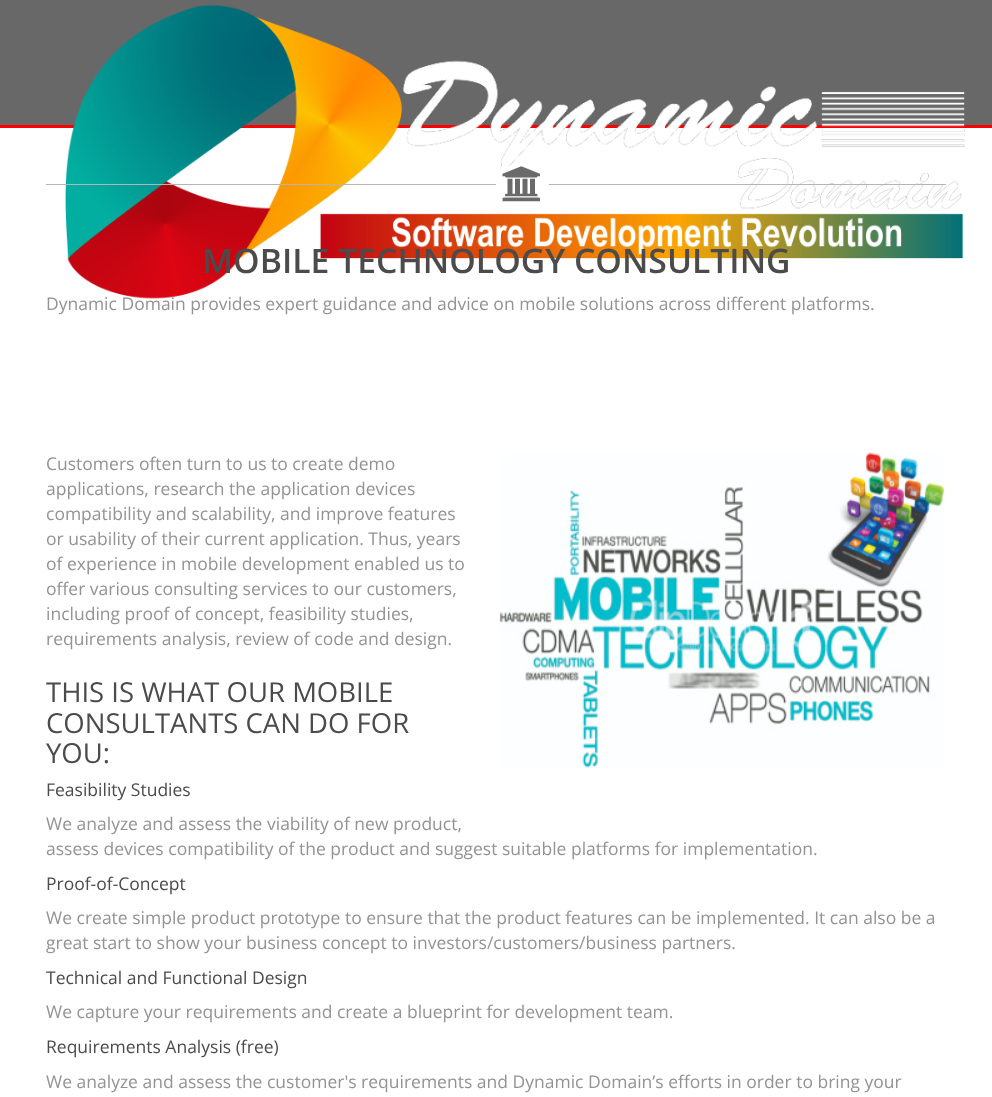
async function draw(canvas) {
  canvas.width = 992;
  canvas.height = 1097;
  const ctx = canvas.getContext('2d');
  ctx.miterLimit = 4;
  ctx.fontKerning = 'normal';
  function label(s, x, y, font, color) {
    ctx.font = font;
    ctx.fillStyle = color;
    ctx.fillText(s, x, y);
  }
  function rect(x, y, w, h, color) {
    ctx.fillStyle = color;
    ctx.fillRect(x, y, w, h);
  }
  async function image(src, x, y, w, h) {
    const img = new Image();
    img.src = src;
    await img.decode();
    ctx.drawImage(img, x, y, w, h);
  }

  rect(0, 0, 992, 1097, '#fff');
  rect(0, 0, 992, 125, '#696868');
  rect(0, 125, 992, 3, '#f00');
  await image('assets/img1.png', 65, 4, 900, 295);
  rect(46, 184, 900, 1, '#b9b3b3');
  rect(496, 166, 53, 19, '#fff');
  await image('assets/img2.png', 502, 166, 38, 36);
  label('MOBILE TECHNOLOGY CONSULTING', 202, 273, '600 33.75px Open Sans', '#4b4b4b');
  label('Dynamic Domain provides expert guidance and advice on mobile solutions across different platforms.', 46, 310, '17.5px Open Sans', '#939393');
  label('Customers often turn to us to create demo', 46, 470, '17.5px Open Sans', '#939393');
  label('applications, research the application devices', 46, 495, '17.5px Open Sans', '#939393');
  label('compatibility and scalability, and improve features', 46, 520, '17.5px Open Sans', '#939393');
  label('or usability of their current application. Thus, years', 46, 545, '17.5px Open Sans', '#939393');
  label('of experience in mobile development enabled us to', 46, 570, '17.5px Open Sans', '#939393');
  label('offer various consulting services to our customers,', 46, 595, '17.5px Open Sans', '#939393');
  label('including proof of concept, feasibility studies,', 46, 620, '17.5px Open Sans', '#939393');
  label('requirements analysis, review of code and design.', 46, 645, '17.5px Open Sans', '#939393');
  label('THIS IS WHAT OUR MOBILE', 46, 702, '27.5px Open Sans', '#4b4b4b');
  label('CONSULTANTS CAN DO FOR', 46, 733, '27.5px Open Sans', '#4b4b4b');
  label('YOU:', 46, 763, '27.5px Open Sans', '#4b4b4b');
  await image('assets/img3.png', 499, 452, 445, 316);
  label('Feasibility Studies', 46, 796, '17.5px Open Sans', '#4b4b4b');
  label('We analyze and assess the viability of new product,', 46, 830, '17.5px Open Sans', '#939393');
  label('assess devices compatibility of the product and suggest suitable platforms for implementation.', 46, 855, '17.5px Open Sans', '#939393');
  label('Proof-of-Concept', 46, 890, '17.5px Open Sans', '#4b4b4b');
  label('We create simple product prototype to ensure that the product features can be implemented. It can also be a', 46, 924, '17.5px Open Sans', '#939393');
  label('great start to show your business concept to investors/customers/business partners.', 46, 949, '17.5px Open Sans', '#939393');
  label('Technical and Functional Design', 46, 984, '17.5px Open Sans', '#4b4b4b');
  label('We capture your requirements and create a blueprint for development team.', 46, 1018, '17.5px Open Sans', '#939393');
  label('Requirements Analysis (free)', 46, 1053, '17.5px Open Sans', '#4b4b4b');
  label('We analyze and assess the customer\'s requirements and Dynamic Domain’s efforts in order to bring your', 46, 1088, '17.5px Open Sans', '#939393');
}

draw(document.querySelector('canvas'));
